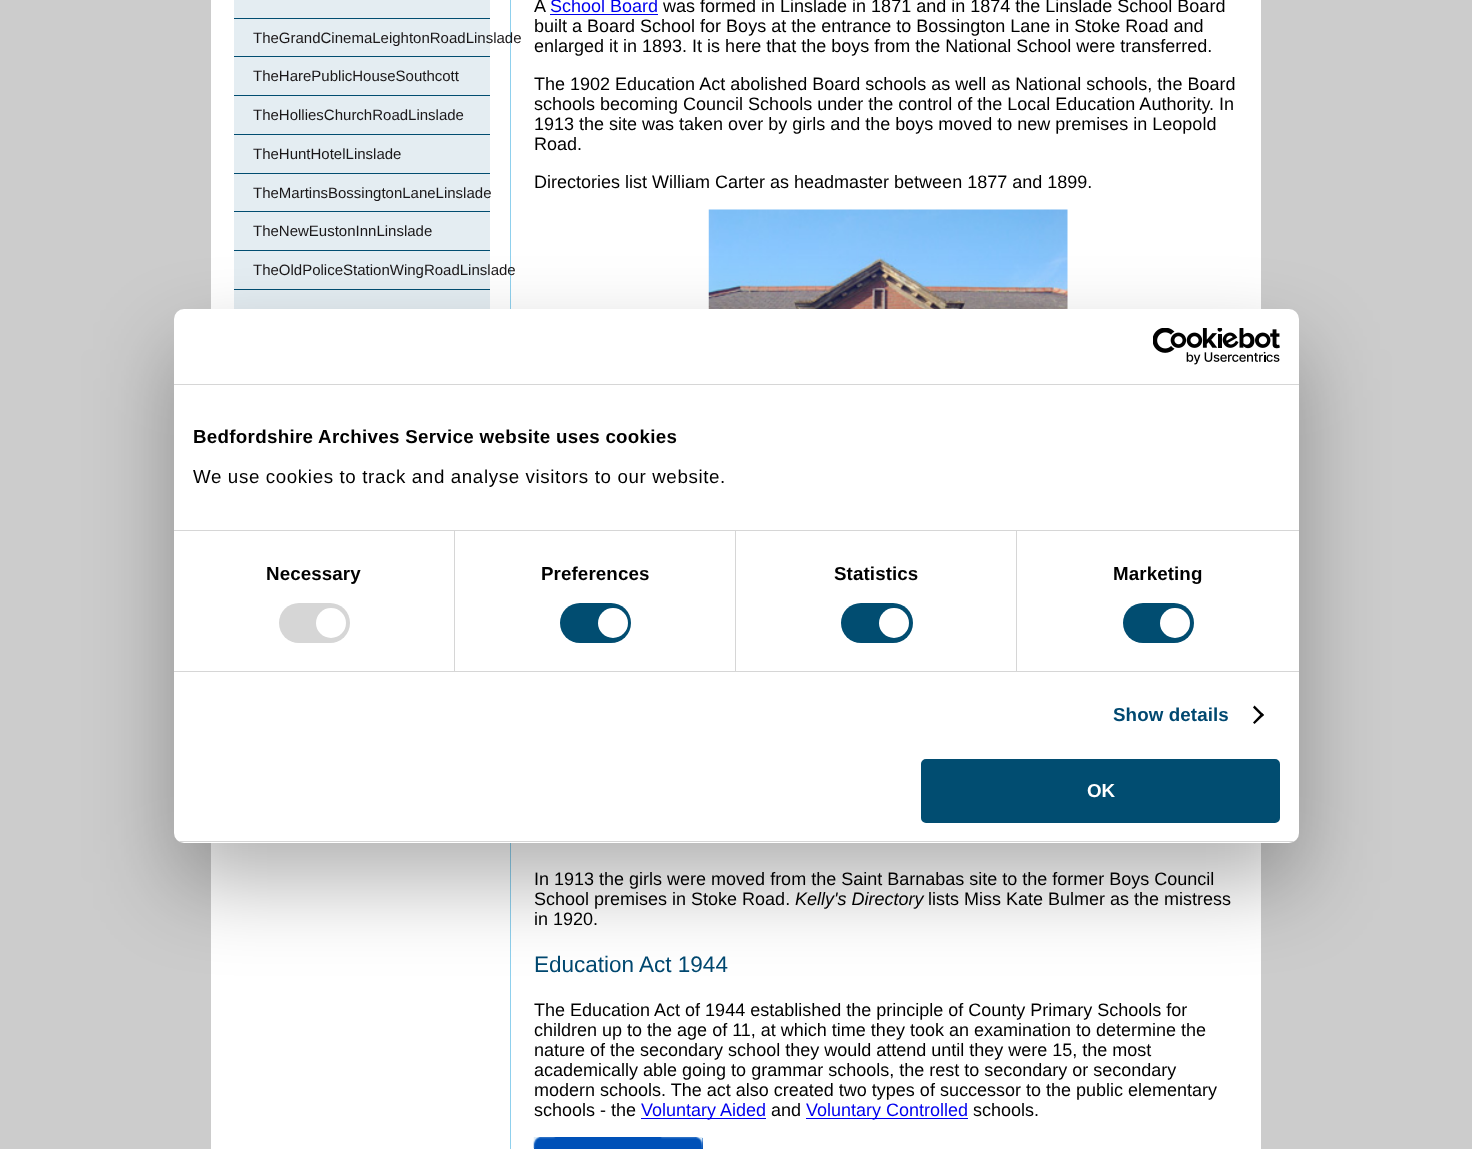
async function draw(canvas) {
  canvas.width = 1472;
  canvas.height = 1149;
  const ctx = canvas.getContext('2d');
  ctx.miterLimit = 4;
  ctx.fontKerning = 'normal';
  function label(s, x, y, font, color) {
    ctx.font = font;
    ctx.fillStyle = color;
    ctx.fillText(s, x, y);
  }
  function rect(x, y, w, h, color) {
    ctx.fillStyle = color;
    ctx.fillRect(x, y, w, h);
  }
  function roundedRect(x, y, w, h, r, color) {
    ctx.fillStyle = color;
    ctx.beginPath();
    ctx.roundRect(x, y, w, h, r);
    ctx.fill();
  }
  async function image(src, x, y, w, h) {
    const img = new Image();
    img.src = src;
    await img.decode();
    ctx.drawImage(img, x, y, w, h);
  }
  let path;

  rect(0, 0, 1472, 1149, '#ccc');
  rect(211, 0, 1050, 1149, '#fff');
  rect(234, 0, 256, 309, '#e4edf2');
  rect(234, 18, 256, 1, '#014d71');
  rect(234, 56, 256, 1, '#014d71');
  rect(510, 0, 1, 1149, '#8fd0ed');
  label('TheGrandCinemaLeightonRoadLinslade', 253, 43, '15px Liberation Sans', '#1a1718');
  rect(234, 95, 256, 1, '#014d71');
  label('TheHarePublicHouseSouthcott', 253, 81, '15px Liberation Sans', '#1a1718');
  rect(234, 134, 256, 1, '#014d71');
  label('TheHolliesChurchRoadLinslade', 253, 120, '15px Liberation Sans', '#1a1718');
  rect(234, 173, 256, 1, '#014d71');
  label('TheHuntHotelLinslade', 253, 159, '15px Liberation Sans', '#1a1718');
  rect(234, 211, 256, 1, '#014d71');
  label('TheMartinsBossingtonLaneLinslade', 253, 198, '15px Liberation Sans', '#1a1718');
  rect(234, 250, 256, 1, '#014d71');
  label('TheNewEustonInnLinslade', 253, 236, '15px Liberation Sans', '#1a1718');
  rect(234, 289, 256, 1, '#014d71');
  label('TheOldPoliceStationWingRoadLinslade', 253, 275, '15px Liberation Sans', '#1a1718');
  label('A', 534, 12, '18px Liberation Sans', '#000');
  label('School Board', 550, 12, '18px Liberation Sans', '#00e');
  rect(550, 14, 108, 1, '#00e');
  label('was formed in Linslade in 1871 and in 1874 the Linslade School Board', 663, 12, '18px Liberation Sans', '#000');
  label('built a Board School for Boys at the entrance to Bossington Lane in Stoke Road and', 534, 32, '18px Liberation Sans', '#000');
  label('enlarged it in 1893. It is here that the boys from the National School were transferred.', 534, 52, '18px Liberation Sans', '#000');
  label('The 1902 Education Act abolished Board schools as well as National schools, the Board', 534, 90, '18px Liberation Sans', '#000');
  label('schools becoming Council Schools under the control of the Local Education Authority. In', 534, 110, '18px Liberation Sans', '#000');
  label('1913 the site was taken over by girls and the boys moved to new premises in Leopold', 534, 130, '18px Liberation Sans', '#000');
  label('Road.', 534, 150, '18px Liberation Sans', '#000');
  label('Directories list William Carter as headmaster between 1877 and 1899.', 534, 188, '18px Liberation Sans', '#000');
  await image('assets/img1.png', 708, 209, 360, 100);
  label('In 1913 the girls were moved from the Saint Barnabas site to the former Boys Council', 534, 885, '18px Liberation Sans', '#000');
  label('School premises in Stoke Road.', 534, 905, '18px Liberation Sans', '#000');
  label('Kelly\'s Directory', 795, 905, 'italic 18px Liberation Sans', '#000');
  label('lists Miss Kate Bulmer as the mistress', 928, 905, '18px Liberation Sans', '#000');
  label('in 1920.', 534, 925, '18px Liberation Sans', '#000');
  label('Education Act 1944', 534, 972, '22.5px Liberation Sans', '#004870');
  label('The Education Act of 1944 established the principle of County Primary Schools for', 534, 1016, '18px Liberation Sans', '#000');
  label('children up to the age of 11, at which time they took an examination to determine the', 534, 1036, '18px Liberation Sans', '#000');
  label('nature of the secondary school they would attend until they were 15, the most', 534, 1056, '18px Liberation Sans', '#000');
  label('academically able going to grammar schools, the rest to secondary or secondary', 534, 1076, '18px Liberation Sans', '#000');
  label('modern schools. The act also created two types of successor to the public elementary', 534, 1096, '18px Liberation Sans', '#000');
  label('schools - the', 534, 1116, '18px Liberation Sans', '#000');
  rect(641, 1118, 125, 1, '#00e');
  label('Voluntary Aided', 641, 1116, '18px Liberation Sans', '#00e');
  label('and', 771, 1116, '18px Liberation Sans', '#000');
  rect(806, 1118, 162, 1, '#00e');
  label('Voluntary Controlled', 806, 1116, '18px Liberation Sans', '#00e');
  label('schools.', 973, 1116, '18px Liberation Sans', '#000');
  rect(534, 1138, 169, 11, '#0051b8');
  await image('assets/img2.png', 533, 1137, 170, 12);
  ctx.fillStyle = '#0000004d';
  ctx.filter = 'blur(42.5px)';
  ctx.beginPath();
  ctx.roundRect(174, 349, 1125, 534, 10);
  ctx.fill();
  ctx.filter = 'none';
  roundedRect(174, 309, 1125, 534, 10, '#fff');
  rect(174, 384, 1125, 1, '#d6d6d6');
  await image('assets/img3.png', 1153, 328, 127, 37);
  rect(174, 530, 1125, 1, '#d6d6d6');
  ctx.letterSpacing = '0.3px';
  label('Bedfordshire Archives Service website uses cookies', 193, 443, 'bold 18.75px Liberation Sans', '#000');
  ctx.letterSpacing = '0.62px';
  label('We use cookies to track and analyse visitors to our website.', 193, 483, '18.75px Liberation Sans', '#000');
  rect(174, 671, 1125, 1, '#d6d6d6');
  rect(454, 531, 1, 140, '#d6d6d6');
  ctx.letterSpacing = '0.1px';
  label('Necessary', 266, 580, 'bold 18.75px Liberation Sans', '#000');
  roundedRect(279, 603, 71, 40, 20, '#d6d6d6');
  ctx.fillStyle = '#fff';
  ctx.beginPath();
  ctx.arc(331, 623, 15, 0, 2 * Math.PI);
  ctx.fill();
  rect(735, 531, 1, 140, '#d6d6d6');
  label('Preferences', 541, 580, 'bold 18.75px Liberation Sans', '#000');
  roundedRect(560, 603, 71, 40, 20, '#014d71');
  ctx.fillStyle = '#fff';
  ctx.beginPath();
  ctx.arc(613, 623, 15, 0, 2 * Math.PI);
  ctx.fill();
  rect(1016, 531, 1, 140, '#d6d6d6');
  label('Statistics', 834, 580, 'bold 18.75px Liberation Sans', '#000');
  roundedRect(841, 603, 72, 40, 20, '#014d71');
  ctx.fillStyle = '#fff';
  ctx.beginPath();
  ctx.arc(894, 623, 15, 0, 2 * Math.PI);
  ctx.fill();
  label('Marketing', 1113, 580, 'bold 18.75px Liberation Sans', '#000');
  roundedRect(1123, 603, 71, 40, 20, '#014d71');
  ctx.fillStyle = '#fff';
  ctx.beginPath();
  ctx.arc(1175, 623, 15, 0, 2 * Math.PI);
  ctx.fill();
  label('Show details', 1113, 721, 'bold 18.75px Liberation Sans', '#004870');
  ctx.fillStyle = '#000';
  path = new Path2D('M1254.5 705.5L1264 715L1262 716.5L1253 707.5Z');
  ctx.fill(path);
  path = new Path2D('M1262 713L1264 715L1254.5 724L1253 722.5Z');
  ctx.fill(path);
  ctx.save();
  ctx.beginPath();
  ctx.roundRect(174, 309, 1125, 534, 10);
  ctx.clip();
  rect(174, 841, 1125, 1, '#d6d6d6');
  ctx.restore();
  ctx.fillStyle = '#014d71';
  ctx.beginPath();
  ctx.roundRect(922.5, 760.5, 356, 61, 3.5);
  ctx.fill();
  ctx.strokeStyle = '#014d71';
  ctx.lineWidth = 3;
  ctx.stroke();
  ctx.letterSpacing = '0px';
  label('OK', 1087, 797, 'bold 18.75px Liberation Sans', '#fff');
}

draw(document.querySelector('canvas'));
